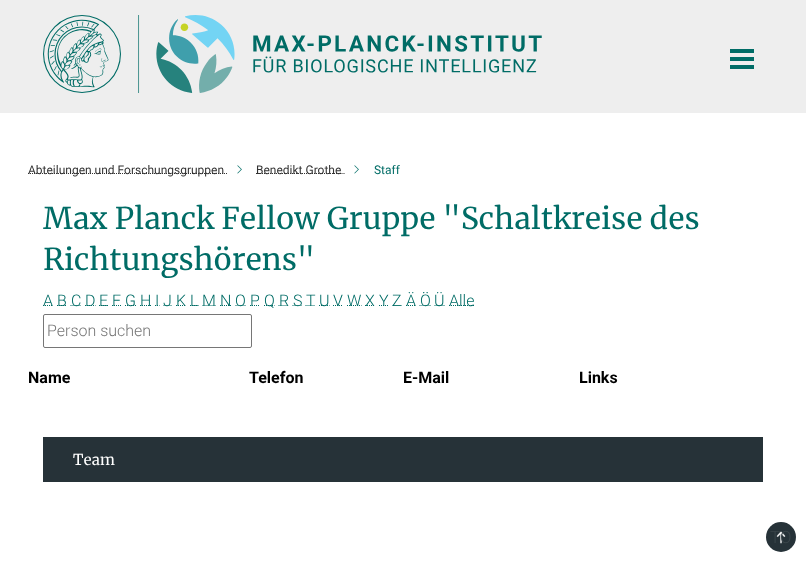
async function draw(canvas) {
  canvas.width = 806;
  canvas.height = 562;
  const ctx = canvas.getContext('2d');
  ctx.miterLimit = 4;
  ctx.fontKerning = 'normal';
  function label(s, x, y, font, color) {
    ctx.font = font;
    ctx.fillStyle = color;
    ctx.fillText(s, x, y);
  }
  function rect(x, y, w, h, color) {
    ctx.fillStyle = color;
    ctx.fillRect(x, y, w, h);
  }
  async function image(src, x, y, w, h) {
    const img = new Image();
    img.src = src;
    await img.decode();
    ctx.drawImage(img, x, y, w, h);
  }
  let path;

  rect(0, 0, 806, 562, '#fff');
  rect(0, 0, 806, 113, '#eee');
  await image('assets/img1.png', 43, 15, 499, 78);
  rect(730, 49, 24, 4, '#006c66');
  rect(730, 57, 24, 4, '#006c66');
  rect(730, 65, 24, 4, '#006c66');
  path = new Path2D('M28 173.5H224');
  ctx.strokeStyle = '#333';
  ctx.setLineDash([1, 1]);
  ctx.stroke(path);
  label('Abteilungen und Forschungsgruppen', 28, 174, '12px Roboto', '#333');
  path = new Path2D('M224 173.5H225M226 173.5H227');
  ctx.setLineDash([]);
  ctx.stroke(path);
  await image('assets/img2.png', 237, 165, 5, 9);
  path = new Path2D('M256 173.5H341.5');
  ctx.setLineDash([1, 1]);
  ctx.stroke(path);
  label('Benedikt Grothe', 256, 174, '12px Roboto', '#333');
  path = new Path2D('M341.5 173.5H342.5M343.5 173.5H344.5');
  ctx.setLineDash([]);
  ctx.stroke(path);
  await image('assets/img2.png', 354, 165, 5, 9);
  label('Staff', 374, 174, '12px Roboto', '#006c66');
  label('Max Planck Fellow Gruppe "Schaltkreise des', 43, 229, '30px Merriweather', '#006c66');
  label('Richtungshörens"', 43, 270, '30px Merriweather', '#006c66');
  path = new Path2D('M43 305.5H53');
  ctx.strokeStyle = '#006c66';
  ctx.setLineDash([1, 1]);
  ctx.stroke(path);
  label('A', 43, 306, '300 16px Roboto', '#006c66');
  path = new Path2D('M57 305.5H66.5');
  ctx.stroke(path);
  label('B', 57, 306, '300 16px Roboto', '#006c66');
  path = new Path2D('M70.5 305.5H81');
  ctx.stroke(path);
  label('C', 71, 306, '300 16px Roboto', '#006c66');
  path = new Path2D('M85 305.5H95.5');
  ctx.stroke(path);
  label('D', 85, 306, '300 16px Roboto', '#006c66');
  path = new Path2D('M99 305.5H108.5');
  ctx.stroke(path);
  label('E', 99, 306, '300 16px Roboto', '#006c66');
  path = new Path2D('M112 305.5H121');
  ctx.stroke(path);
  label('F', 112, 306, '300 16px Roboto', '#006c66');
  path = new Path2D('M125 305.5H136');
  ctx.stroke(path);
  label('G', 125, 306, '300 16px Roboto', '#006c66');
  path = new Path2D('M140 305.5H151.5');
  ctx.stroke(path);
  label('H', 140, 306, '300 16px Roboto', '#006c66');
  path = new Path2D('M155 305.5H156M157 305.5H158M159 305.5H159.5');
  ctx.setLineDash([]);
  ctx.stroke(path);
  label('I', 155, 306, '300 16px Roboto', '#006c66');
  path = new Path2D('M163.5 305.5H172');
  ctx.setLineDash([1, 1]);
  ctx.stroke(path);
  label('J', 163, 306, '300 16px Roboto', '#006c66');
  path = new Path2D('M176 305.5H186');
  ctx.stroke(path);
  label('K', 176, 306, '300 16px Roboto', '#006c66');
  path = new Path2D('M190 305.5H198.5');
  ctx.stroke(path);
  label('L', 190, 306, '300 16px Roboto', '#006c66');
  path = new Path2D('M202.5 305.5H216');
  ctx.stroke(path);
  label('M', 202, 306, '300 16px Roboto', '#006c66');
  path = new Path2D('M220 305.5H231.5');
  ctx.stroke(path);
  label('N', 220, 306, '300 16px Roboto', '#006c66');
  path = new Path2D('M235.5 305.5H246');
  ctx.stroke(path);
  label('O', 235, 306, '300 16px Roboto', '#006c66');
  path = new Path2D('M250 305.5H260');
  ctx.stroke(path);
  label('P', 250, 306, '300 16px Roboto', '#006c66');
  path = new Path2D('M264 305.5H274.5');
  ctx.stroke(path);
  label('Q', 264, 306, '300 16px Roboto', '#006c66');
  path = new Path2D('M278.5 305.5H288.5');
  ctx.stroke(path);
  label('R', 279, 306, '300 16px Roboto', '#006c66');
  path = new Path2D('M292.5 305.5H302');
  ctx.stroke(path);
  label('S', 293, 306, '300 16px Roboto', '#006c66');
  path = new Path2D('M305.5 305.5H315');
  ctx.stroke(path);
  label('T', 306, 306, '300 16px Roboto', '#006c66');
  path = new Path2D('M319 305.5H329.5');
  ctx.stroke(path);
  label('U', 319, 306, '300 16px Roboto', '#006c66');
  path = new Path2D('M333 305.5H343');
  ctx.stroke(path);
  label('V', 333, 306, '300 16px Roboto', '#006c66');
  path = new Path2D('M347 305.5H361.5');
  ctx.stroke(path);
  label('W', 347, 306, '300 16px Roboto', '#006c66');
  path = new Path2D('M365 305.5H375');
  ctx.stroke(path);
  label('X', 365, 306, '300 16px Roboto', '#006c66');
  path = new Path2D('M379 305.5H388.5');
  ctx.stroke(path);
  label('Y', 379, 306, '300 16px Roboto', '#006c66');
  path = new Path2D('M392.5 305.5H402');
  ctx.stroke(path);
  label('Z', 392, 306, '300 16px Roboto', '#006c66');
  path = new Path2D('M406 305.5H416');
  ctx.stroke(path);
  label('Ä', 406, 306, '300 16px Roboto', '#006c66');
  path = new Path2D('M419.5 305.5H430.5');
  ctx.stroke(path);
  label('Ö', 420, 306, '300 16px Roboto', '#006c66');
  path = new Path2D('M434.5 305.5H445');
  ctx.stroke(path);
  label('Ü', 434, 306, '300 16px Roboto', '#006c66');
  path = new Path2D('M449 305.5H474.5');
  ctx.stroke(path);
  label('Alle', 449, 306, '300 16px Roboto', '#006c66');
  ctx.beginPath();
  ctx.roundRect(43.5, 314.5, 208, 33, 1.5);
  ctx.strokeStyle = '#767676';
  ctx.setLineDash([]);
  ctx.stroke();
  label('Person suchen', 47, 336, '300 16px Roboto', '#757575');
  label('Name', 28, 383, 'bold 16px Roboto', '#000');
  label('Telefon', 249, 383, 'bold 16px Roboto', '#000');
  label('E-Mail', 403, 383, 'bold 16px Roboto', '#000');
  label('Links', 579, 383, 'bold 16px Roboto', '#000');
  rect(43, 437, 720, 45, '#263238');
  label('Team', 73, 465, '15px Merriweather', '#fff');
  ctx.fillStyle = '#263238';
  ctx.beginPath();
  ctx.arc(781, 537, 15, 0, 2 * Math.PI);
  ctx.fill();
  await image('assets/img3.png', 776, 531, 10, 13);
  label('TO', 770, 543, '300 17px Roboto', '#3a454a');
}

draw(document.querySelector('canvas'));
